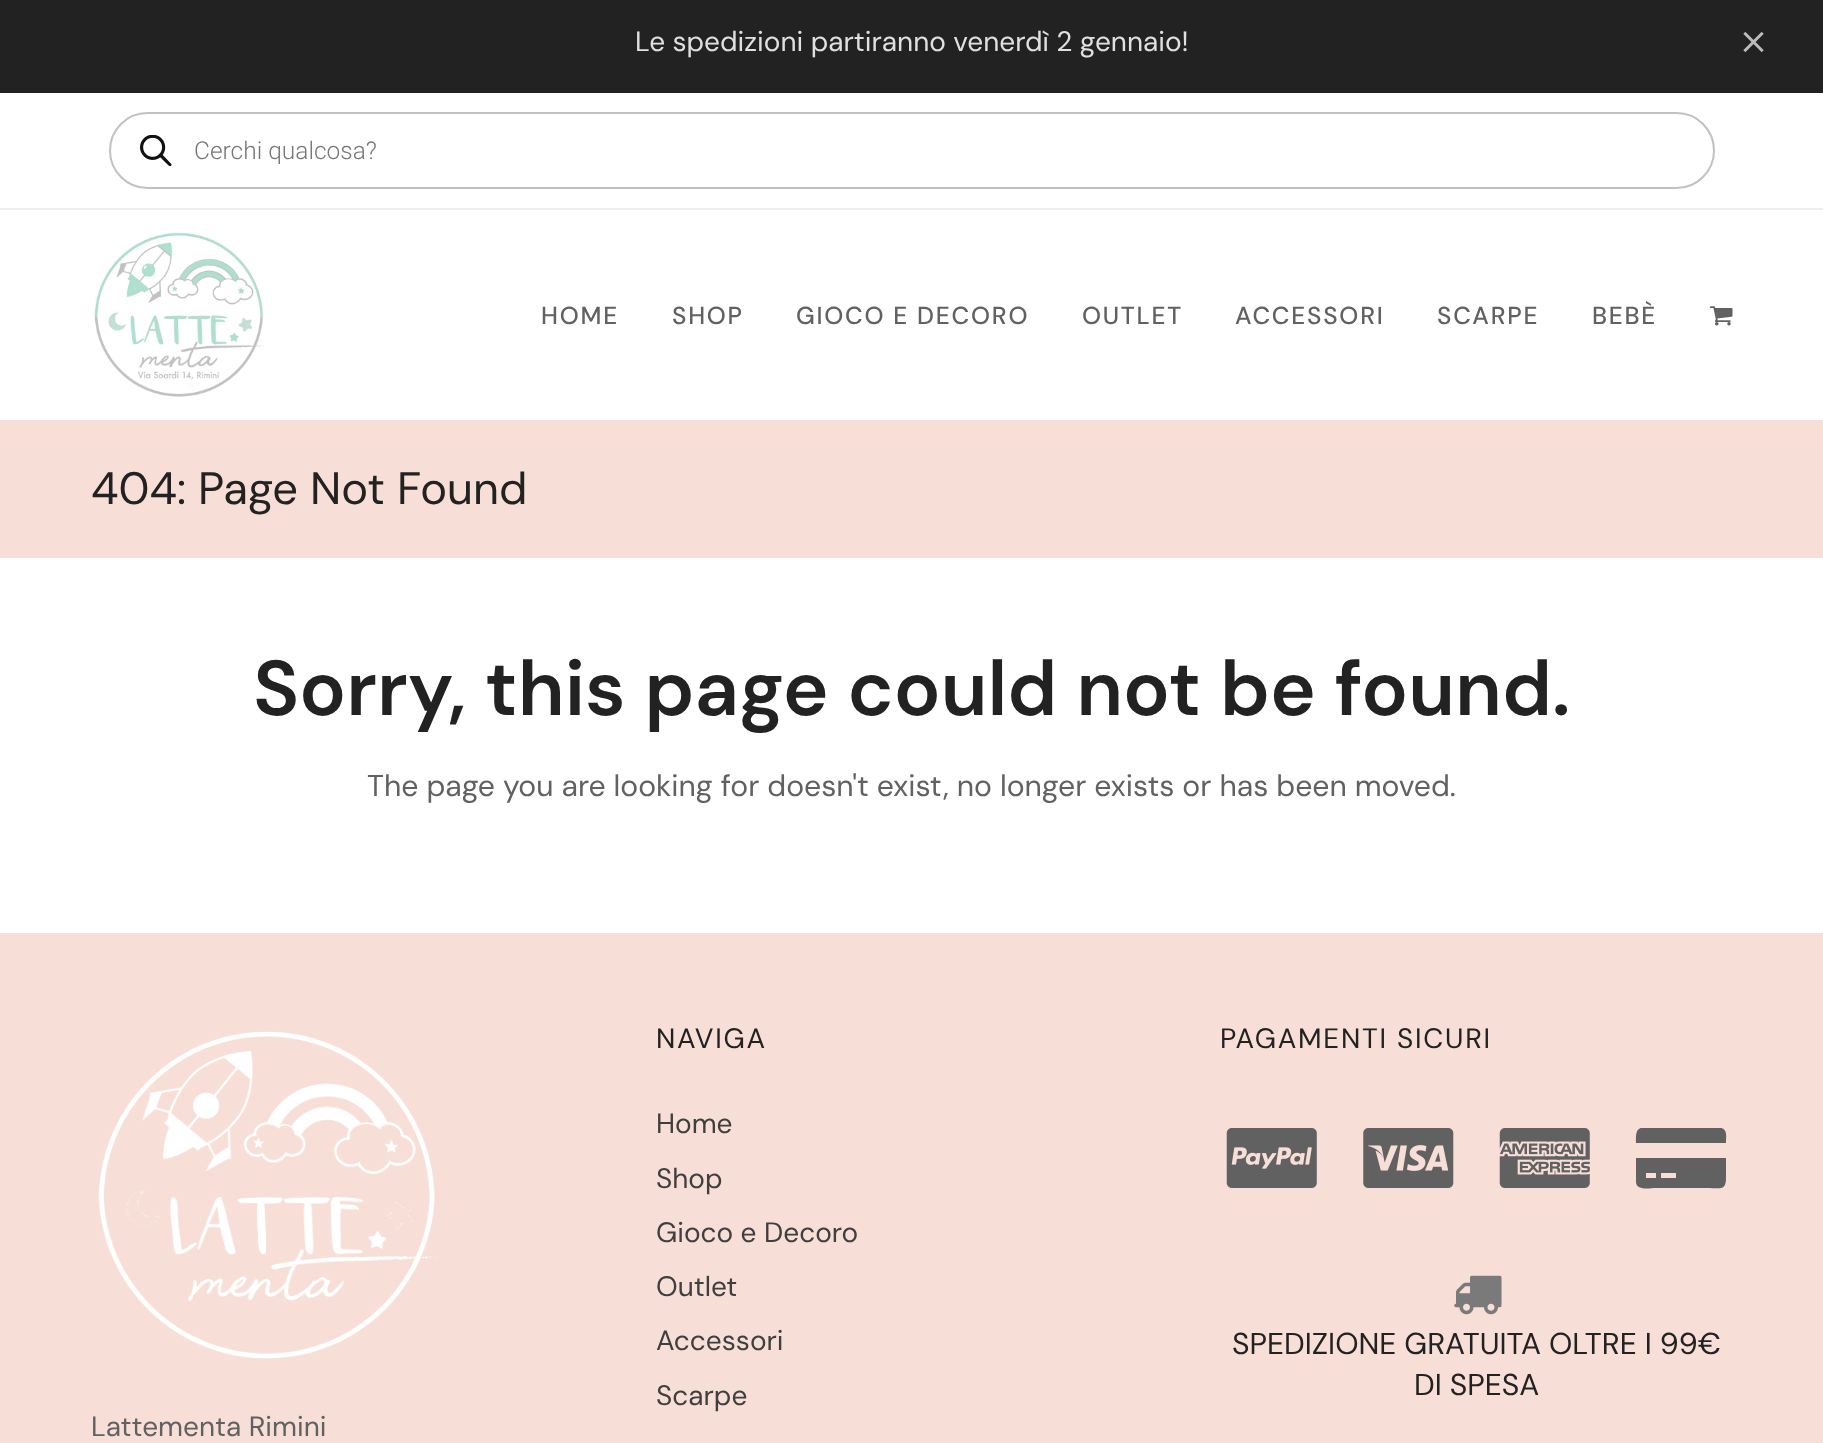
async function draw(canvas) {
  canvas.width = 1823;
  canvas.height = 1443;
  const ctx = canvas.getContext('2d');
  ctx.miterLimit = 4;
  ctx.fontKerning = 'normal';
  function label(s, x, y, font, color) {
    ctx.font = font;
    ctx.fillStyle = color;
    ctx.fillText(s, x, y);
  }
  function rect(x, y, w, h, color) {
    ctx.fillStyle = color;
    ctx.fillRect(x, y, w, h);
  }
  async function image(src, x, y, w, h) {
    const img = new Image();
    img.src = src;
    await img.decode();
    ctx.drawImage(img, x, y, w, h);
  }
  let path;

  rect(0, 0, 1823, 1443, '#fff');
  rect(0, 0, 1823, 93, '#222');
  label('Le spedizioni partiranno venerdì 2 gennaio!', 635, 51, '28px DM Sans', '#e0e0e0');
  await image('assets/img1.png', 1743, 31, 21, 22);
  rect(0, 208, 1823, 2, '#eee');
  ctx.beginPath();
  ctx.roundRect(110, 113, 1604, 75, 37.5);
  ctx.strokeStyle = '#c1c1bf';
  ctx.lineWidth = 2;
  ctx.stroke();
  await image('assets/img2.png', 140, 135, 32, 31);
  label('Cerchi qualcosa?', 194, 159, '300 24.5px Roboto', '#777');
  await image('assets/img3.png', 94, 232, 171, 165);
  ctx.letterSpacing = '1.75px';
  label('HOME', 541, 324, '500 24.5px DM Sans', '#616161');
  label('SHOP', 672, 324, '500 24.5px DM Sans', '#616161');
  label('GIOCO E DECORO', 796, 324, '500 24.5px DM Sans', '#616161');
  label('OUTLET', 1082, 324, '500 24.5px DM Sans', '#616161');
  label('ACCESSORI', 1235, 324, '500 24.5px DM Sans', '#616161');
  label('SCARPE', 1437, 324, '500 24.5px DM Sans', '#616161');
  label('BEBÈ', 1592, 324, '500 24.5px DM Sans', '#616161');
  await image('assets/img4.png', 1709, 306, 24, 20);
  rect(0, 420, 1823, 138, '#f7ded7');
  ctx.letterSpacing = '0px';
  label('404: Page Not Found', 91, 504, '45.25px DM Sans', '#222');
  label('Sorry, this page could not be found.', 253, 715, '600 77.5px DM Sans', '#222');
  label('The page you are looking for doesn\'t exist, no longer exists or has been moved.', 367, 796, '30.15px DM Sans', '#616161');
  rect(0, 933, 1823, 510, '#f7ded7');
  ctx.letterSpacing = '1.75px';
  label('NAVIGA', 656, 1048, '28px DM Sans', '#222');
  ctx.letterSpacing = '0px';
  label('Home', 656, 1133, '28px DM Sans', '#3f3f3f');
  label('Shop', 656, 1188, '28px DM Sans', '#3f3f3f');
  label('Gioco e Decoro', 656, 1242, '28px DM Sans', '#3f3f3f');
  label('Outlet', 656, 1296, '28px DM Sans', '#3f3f3f');
  label('Accessori', 656, 1350, '28px DM Sans', '#3f3f3f');
  label('Scarpe', 656, 1405, '28px DM Sans', '#3f3f3f');
  ctx.letterSpacing = '1.75px';
  label('PAGAMENTI SICURI', 1220, 1048, '28px DM Sans', '#222');
  await image('assets/img5.png', 1226, 1128, 91, 60);
  await image('assets/img6.png', 1363, 1128, 91, 60);
  await image('assets/img7.png', 1499, 1128, 91, 60);
  ctx.fillStyle = '#616161';
  path = new Path2D('M1636 1182V1158H1726V1178C1726 1191 1720 1188 1707 1188H1655C1651 1188 1636 1191 1636 1182ZM1661 1173V1178H1676V1173ZM1646 1173V1178H1656V1173ZM1720 1128C1728 1128 1726 1138 1726 1143H1636C1636 1138 1635 1128 1642 1128Z');
  ctx.fill(path);
  await image('assets/img8.png', 1454, 1275, 48, 40);
  ctx.letterSpacing = '0px';
  label('SPEDIZIONE GRATUITA OLTRE I 99€', 1232, 1354, '30.15px DM Sans', '#222');
  label('DI SPESA', 1414, 1395, '30.15px DM Sans', '#222');
  await image('assets/img9.png', 98, 1031, 340, 328);
  label('Lattementa Rimini', 91, 1436, '28px DM Sans', '#616161');
}

draw(document.querySelector('canvas'));
